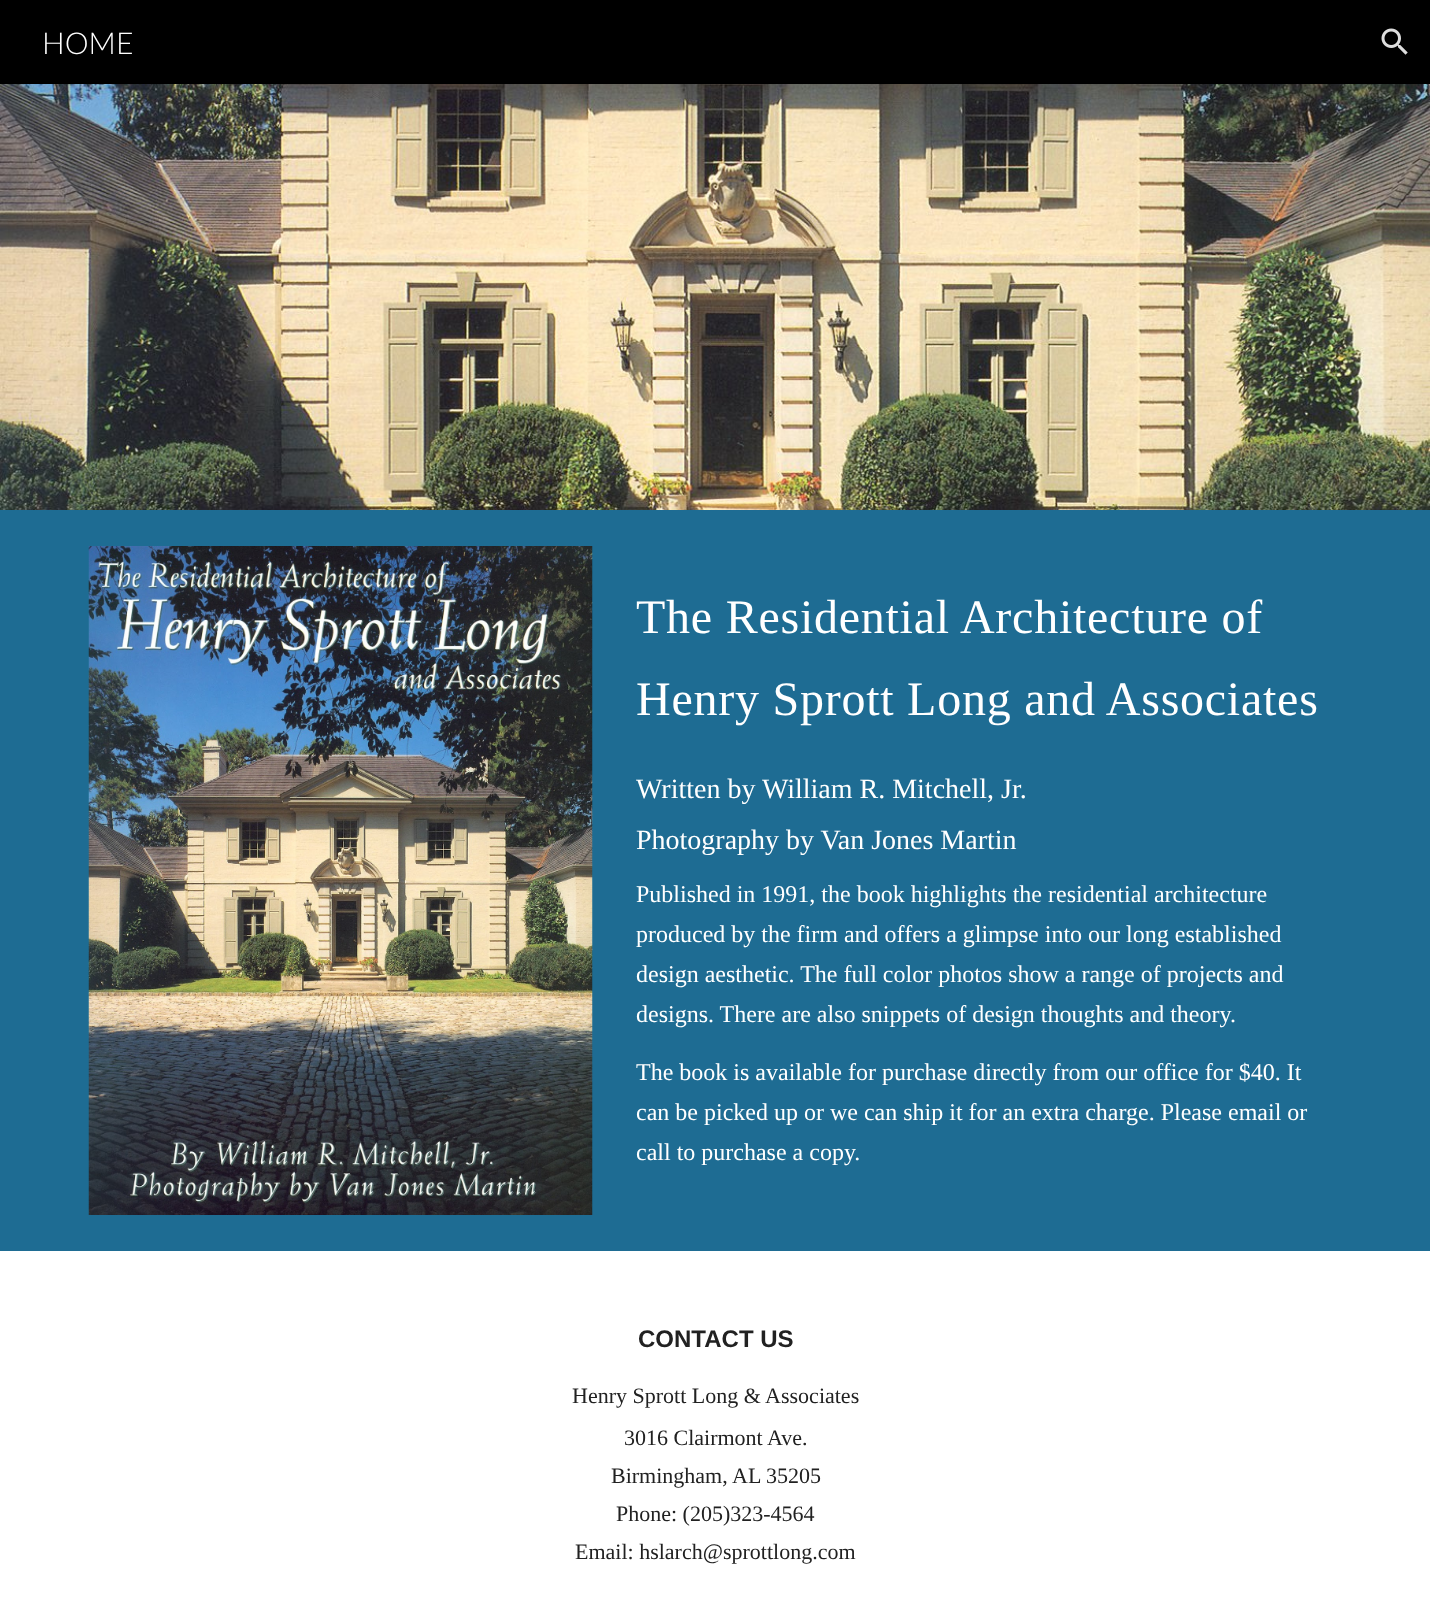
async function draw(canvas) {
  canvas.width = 1430;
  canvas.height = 1613;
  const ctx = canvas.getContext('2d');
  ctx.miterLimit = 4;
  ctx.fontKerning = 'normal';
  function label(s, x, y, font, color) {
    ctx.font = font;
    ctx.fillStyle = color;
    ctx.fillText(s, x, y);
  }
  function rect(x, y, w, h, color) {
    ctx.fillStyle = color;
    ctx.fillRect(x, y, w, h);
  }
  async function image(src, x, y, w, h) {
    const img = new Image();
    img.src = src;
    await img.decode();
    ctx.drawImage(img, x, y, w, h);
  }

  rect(0, 0, 1430, 1613, '#fff');
  rect(0, 0, 1430, 84, '#000');
  label('HOME', 42, 54, '300 30px Lato', '#fff');
  await image('assets/img1.png', 1381, 28, 27, 27);
  await image('assets/img2.png', 0, 84, 1430, 426);
  rect(0, 510, 1430, 741, '#1e6c93');
  await image('assets/img3.png', 88, 546, 505, 669);
  ctx.letterSpacing = '0.75px';
  label('The Residential Architecture of', 636, 633, '48px Liberation Serif', '#fff');
  label('Henry Sprott Long and Associates', 636, 715, '48px Liberation Serif', '#fff');
  ctx.letterSpacing = '0px';
  label('Written by William R. Mitchell, Jr.', 636, 798, '28px Liberation Serif', '#fff');
  label('Photography by Van Jones Martin', 636, 849, '28px Liberation Serif', '#fff');
  label('Published in 1991, the book highlights the residential architecture', 636, 902, '24px Liberation Serif', '#fff');
  label('produced by the firm and offers a glimpse into our long established', 636, 942, '24px Liberation Serif', '#fff');
  label('design aesthetic. The full color photos show a range of projects and', 636, 982, '24px Liberation Serif', '#fff');
  label('designs. There are also snippets of design thoughts and theory.', 636, 1022, '24px Liberation Serif', '#fff');
  label('The book is available for purchase directly from our office for $40. It', 636, 1080, '24px Liberation Serif', '#fff');
  label('can be picked up or we can ship it for an extra charge. Please email or', 636, 1120, '24px Liberation Serif', '#fff');
  label('call to purchase a copy.', 636, 1160, '24px Liberation Serif', '#fff');
  label('CONTACT US', 638, 1347, 'bold 24px Liberation Sans', '#212121');
  label('Henry Sprott Long & Associates', 572, 1403, '22px Liberation Serif', '#212121');
  label('3016 Clairmont Ave.', 624, 1445, '22px Liberation Serif', '#212121');
  label('Birmingham, AL 35205', 611, 1483, '22px Liberation Serif', '#212121');
  label('Phone: (205)323-4564', 616, 1521, '22px Liberation Serif', '#212121');
  label('Email: hslarch@sprottlong.com', 575, 1559, '22px Liberation Serif', '#212121');
}

draw(document.querySelector('canvas'));
